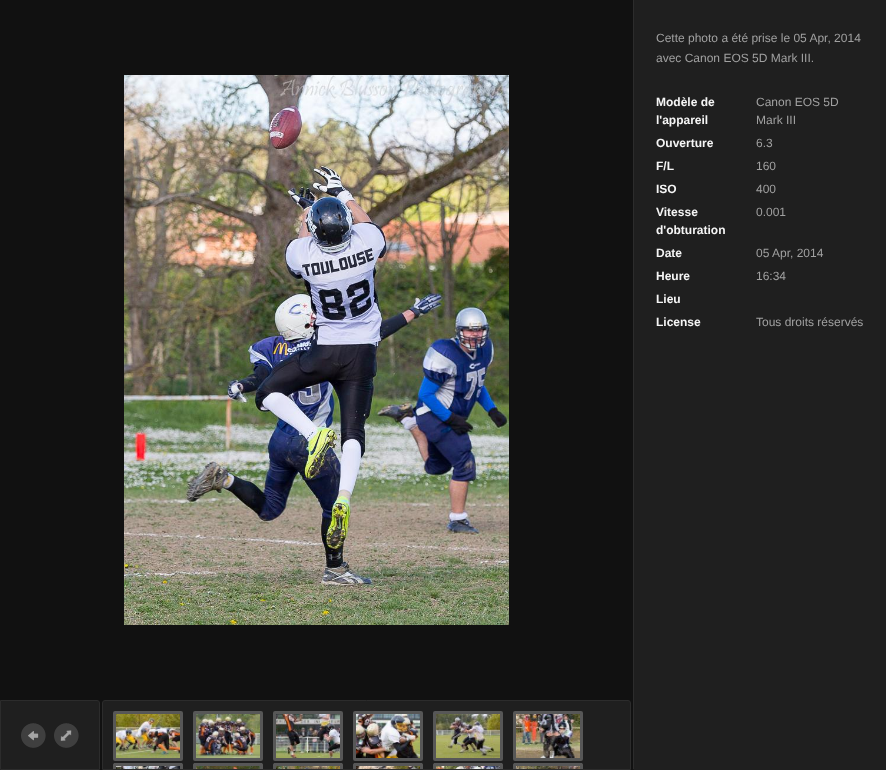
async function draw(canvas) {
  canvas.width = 886;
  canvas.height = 770;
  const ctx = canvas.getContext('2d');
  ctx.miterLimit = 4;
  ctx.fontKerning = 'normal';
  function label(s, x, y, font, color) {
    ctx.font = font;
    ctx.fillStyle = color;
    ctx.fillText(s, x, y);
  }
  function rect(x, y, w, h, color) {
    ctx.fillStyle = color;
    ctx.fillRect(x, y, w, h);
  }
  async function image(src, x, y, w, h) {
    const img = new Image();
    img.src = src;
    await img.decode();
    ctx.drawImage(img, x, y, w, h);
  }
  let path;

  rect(0, 0, 886, 770, '#1f1f1f');
  ctx.fillStyle = '#111';
  ctx.beginPath();
  ctx.roundRect(0, 0, 634, 770, [0, 0, 2, 2]);
  ctx.fill();
  rect(633, 0, 1, 769, '#2c2c2c');
  await image('assets/img1.png', 124, 75, 385, 550);
  label('Cette photo a été prise le 05 Apr, 2014', 656, 42, '12px Liberation Sans', '#a0a0a0');
  label('avec Canon EOS 5D Mark III.', 656, 62, '12px Liberation Sans', '#a0a0a0');
  label('Modèle de', 656, 106, 'bold 12px Liberation Sans', '#f5f5f5');
  label('l\'appareil', 656, 124, 'bold 12px Liberation Sans', '#f5f5f5');
  label('Canon EOS 5D', 756, 106, '12px Liberation Sans', '#a0a0a0');
  label('Mark III', 756, 124, '12px Liberation Sans', '#a0a0a0');
  label('Ouverture', 656, 147, 'bold 12px Liberation Sans', '#f5f5f5');
  label('6.3', 756, 147, '12px Liberation Sans', '#a0a0a0');
  label('F/L', 656, 170, 'bold 12px Liberation Sans', '#f5f5f5');
  label('160', 756, 170, '12px Liberation Sans', '#a0a0a0');
  label('ISO', 656, 193, 'bold 12px Liberation Sans', '#f5f5f5');
  label('400', 756, 193, '12px Liberation Sans', '#a0a0a0');
  label('Vitesse', 656, 216, 'bold 12px Liberation Sans', '#f5f5f5');
  label('d\'obturation', 656, 234, 'bold 12px Liberation Sans', '#f5f5f5');
  label('0.001', 756, 216, '12px Liberation Sans', '#a0a0a0');
  label('Date', 656, 257, 'bold 12px Liberation Sans', '#f5f5f5');
  label('05 Apr, 2014', 756, 257, '12px Liberation Sans', '#a0a0a0');
  label('Heure', 656, 280, 'bold 12px Liberation Sans', '#f5f5f5');
  label('16:34', 756, 280, '12px Liberation Sans', '#a0a0a0');
  label('Lieu', 656, 303, 'bold 12px Liberation Sans', '#f5f5f5');
  label('License', 656, 326, 'bold 12px Liberation Sans', '#f5f5f5');
  label('Tous droits réservés', 756, 326, '12px Liberation Sans', '#a0a0a0');
  ctx.fillStyle = '#1f1f1f';
  ctx.beginPath();
  ctx.roundRect(0.5, 700.5, 99, 69, [0, 2.5, 0, 0]);
  ctx.fill();
  ctx.strokeStyle = '#2c2c2c';
  ctx.stroke();
  await image('assets/img2.png', 21, 723, 25, 25);
  await image('assets/img3.png', 54, 723, 25, 25);
  ctx.beginPath();
  ctx.roundRect(102.5, 700.5, 528, 69, [2.5, 2.5, 0, 0]);
  ctx.fill();
  ctx.stroke();
  ctx.beginPath();
  ctx.roundRect(114.5, 712.5, 67, 47, 0.5);
  ctx.strokeStyle = '#575757';
  ctx.lineWidth = 3;
  ctx.stroke();
  await image('assets/img4.png', 116, 714, 64, 44);
  ctx.beginPath();
  ctx.roundRect(194.5, 712.5, 67, 47, 0.5);
  ctx.stroke();
  await image('assets/img5.png', 196, 714, 64, 44);
  ctx.beginPath();
  ctx.roundRect(274.5, 712.5, 67, 47, 0.5);
  ctx.stroke();
  await image('assets/img6.png', 276, 714, 64, 44);
  ctx.beginPath();
  ctx.roundRect(354.5, 712.5, 67, 47, 0.5);
  ctx.stroke();
  await image('assets/img7.png', 356, 714, 64, 44);
  ctx.beginPath();
  ctx.roundRect(434.5, 712.5, 67, 47, 0.5);
  ctx.stroke();
  await image('assets/img8.png', 436, 714, 64, 44);
  ctx.beginPath();
  ctx.roundRect(514.5, 712.5, 67, 47, 0.5);
  ctx.stroke();
  await image('assets/img9.png', 516, 714, 64, 44);
  ctx.save();
  ctx.beginPath();
  ctx.rect(113, 763, 70, 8);
  ctx.clip();
  ctx.fillStyle = '#575757';
  path = new Path2D('M115 763C112 763 113 767 113 769H116V766H180V769H183C183 767 184 763 181 763Z');
  ctx.fill(path);
  ctx.restore();
  await image('assets/img10.png', 116, 766, 64, 3);
  ctx.save();
  ctx.beginPath();
  ctx.rect(193, 763, 70, 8);
  ctx.clip();
  ctx.fillStyle = '#575757';
  path = new Path2D('M195 763C192 763 193 767 193 769H196V766H260V769H263C263 767 264 763 261 763Z');
  ctx.fill(path);
  ctx.restore();
  await image('assets/img11.png', 196, 766, 64, 3);
  ctx.save();
  ctx.beginPath();
  ctx.rect(273, 763, 70, 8);
  ctx.clip();
  ctx.fillStyle = '#575757';
  path = new Path2D('M275 763C272 763 273 767 273 769H276V766H340V769H343C343 767 344 763 341 763Z');
  ctx.fill(path);
  ctx.restore();
  await image('assets/img12.png', 276, 766, 64, 3);
  ctx.save();
  ctx.beginPath();
  ctx.rect(353, 763, 70, 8);
  ctx.clip();
  ctx.fillStyle = '#575757';
  path = new Path2D('M355 763C352 763 353 767 353 769H356V766H420V769H423C423 767 424 763 421 763Z');
  ctx.fill(path);
  ctx.restore();
  await image('assets/img13.png', 356, 766, 64, 3);
  ctx.save();
  ctx.beginPath();
  ctx.rect(433, 763, 70, 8);
  ctx.clip();
  ctx.fillStyle = '#575757';
  path = new Path2D('M435 763C432 763 433 767 433 769H436V766H500V769H503C503 767 504 763 501 763Z');
  ctx.fill(path);
  ctx.restore();
  await image('assets/img14.png', 436, 766, 64, 3);
  ctx.save();
  ctx.beginPath();
  ctx.rect(513, 763, 70, 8);
  ctx.clip();
  ctx.fillStyle = '#575757';
  path = new Path2D('M515 763C512 763 513 767 513 769H516V766H580V769H583C583 767 584 763 581 763Z');
  ctx.fill(path);
  ctx.restore();
  await image('assets/img15.png', 516, 766, 64, 3);
}

draw(document.querySelector('canvas'));
